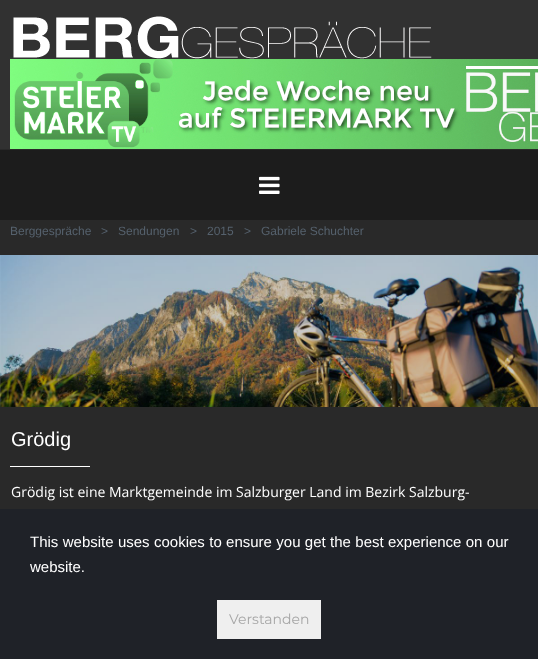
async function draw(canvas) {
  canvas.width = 538;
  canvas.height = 659;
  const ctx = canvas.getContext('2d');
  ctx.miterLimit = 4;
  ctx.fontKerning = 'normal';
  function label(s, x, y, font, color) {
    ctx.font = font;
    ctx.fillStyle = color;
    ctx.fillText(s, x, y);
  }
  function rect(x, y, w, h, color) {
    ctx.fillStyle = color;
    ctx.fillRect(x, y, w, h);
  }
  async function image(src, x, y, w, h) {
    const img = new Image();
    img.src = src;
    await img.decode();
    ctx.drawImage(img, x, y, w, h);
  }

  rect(0, 0, 538, 659, '#292929');
  rect(0, 0, 538, 149, '#313131');
  await image('assets/img1.png', 13, 16, 419, 43);
  await image('assets/img2.png', 10, 59, 528, 90);
  rect(0, 150, 538, 70, '#1c1c1c');
  await image('assets/img3.png', 259, 176, 21, 18);
  label('Berggespräche', 10, 235, '12px Liberation Sans', '#55616d');
  label('>', 101, 235, '12px Liberation Sans', '#55616d');
  label('Sendungen', 118, 235, '12px Liberation Sans', '#55616d');
  label('>', 190, 235, '12px Liberation Sans', '#55616d');
  label('2015', 207, 235, '12px Liberation Sans', '#55616d');
  label('>', 244, 235, '12px Liberation Sans', '#55616d');
  label('Gabriele Schuchter', 261, 235, '12px Liberation Sans', '#55616d');
  await image('assets/img4.png', 0, 255, 538, 152);
  label('Grödig', 11, 446, '20px Liberation Sans', '#fff');
  rect(10, 466, 80, 1, '#fff');
  label('Grödig ist eine Marktgemeinde im Salzburger Land im Bezirk Salzburg-', 11, 497, '14px Open Sans', '#fff');
  rect(0, 509, 538, 150, '#1f2228');
  ctx.wordSpacing = '0.2px';
  label('This website uses cookies to ensure you get the best experience on our', 30, 547, '15px Liberation Sans', '#fff');
  ctx.wordSpacing = '0px';
  label('website.', 30, 572, '15px Liberation Sans', '#fff');
  rect(217, 600, 104, 39, '#efefef');
  label('Verstanden', 229, 624, '14px Montserrat', '#a6a6a6');
}

draw(document.querySelector('canvas'));
